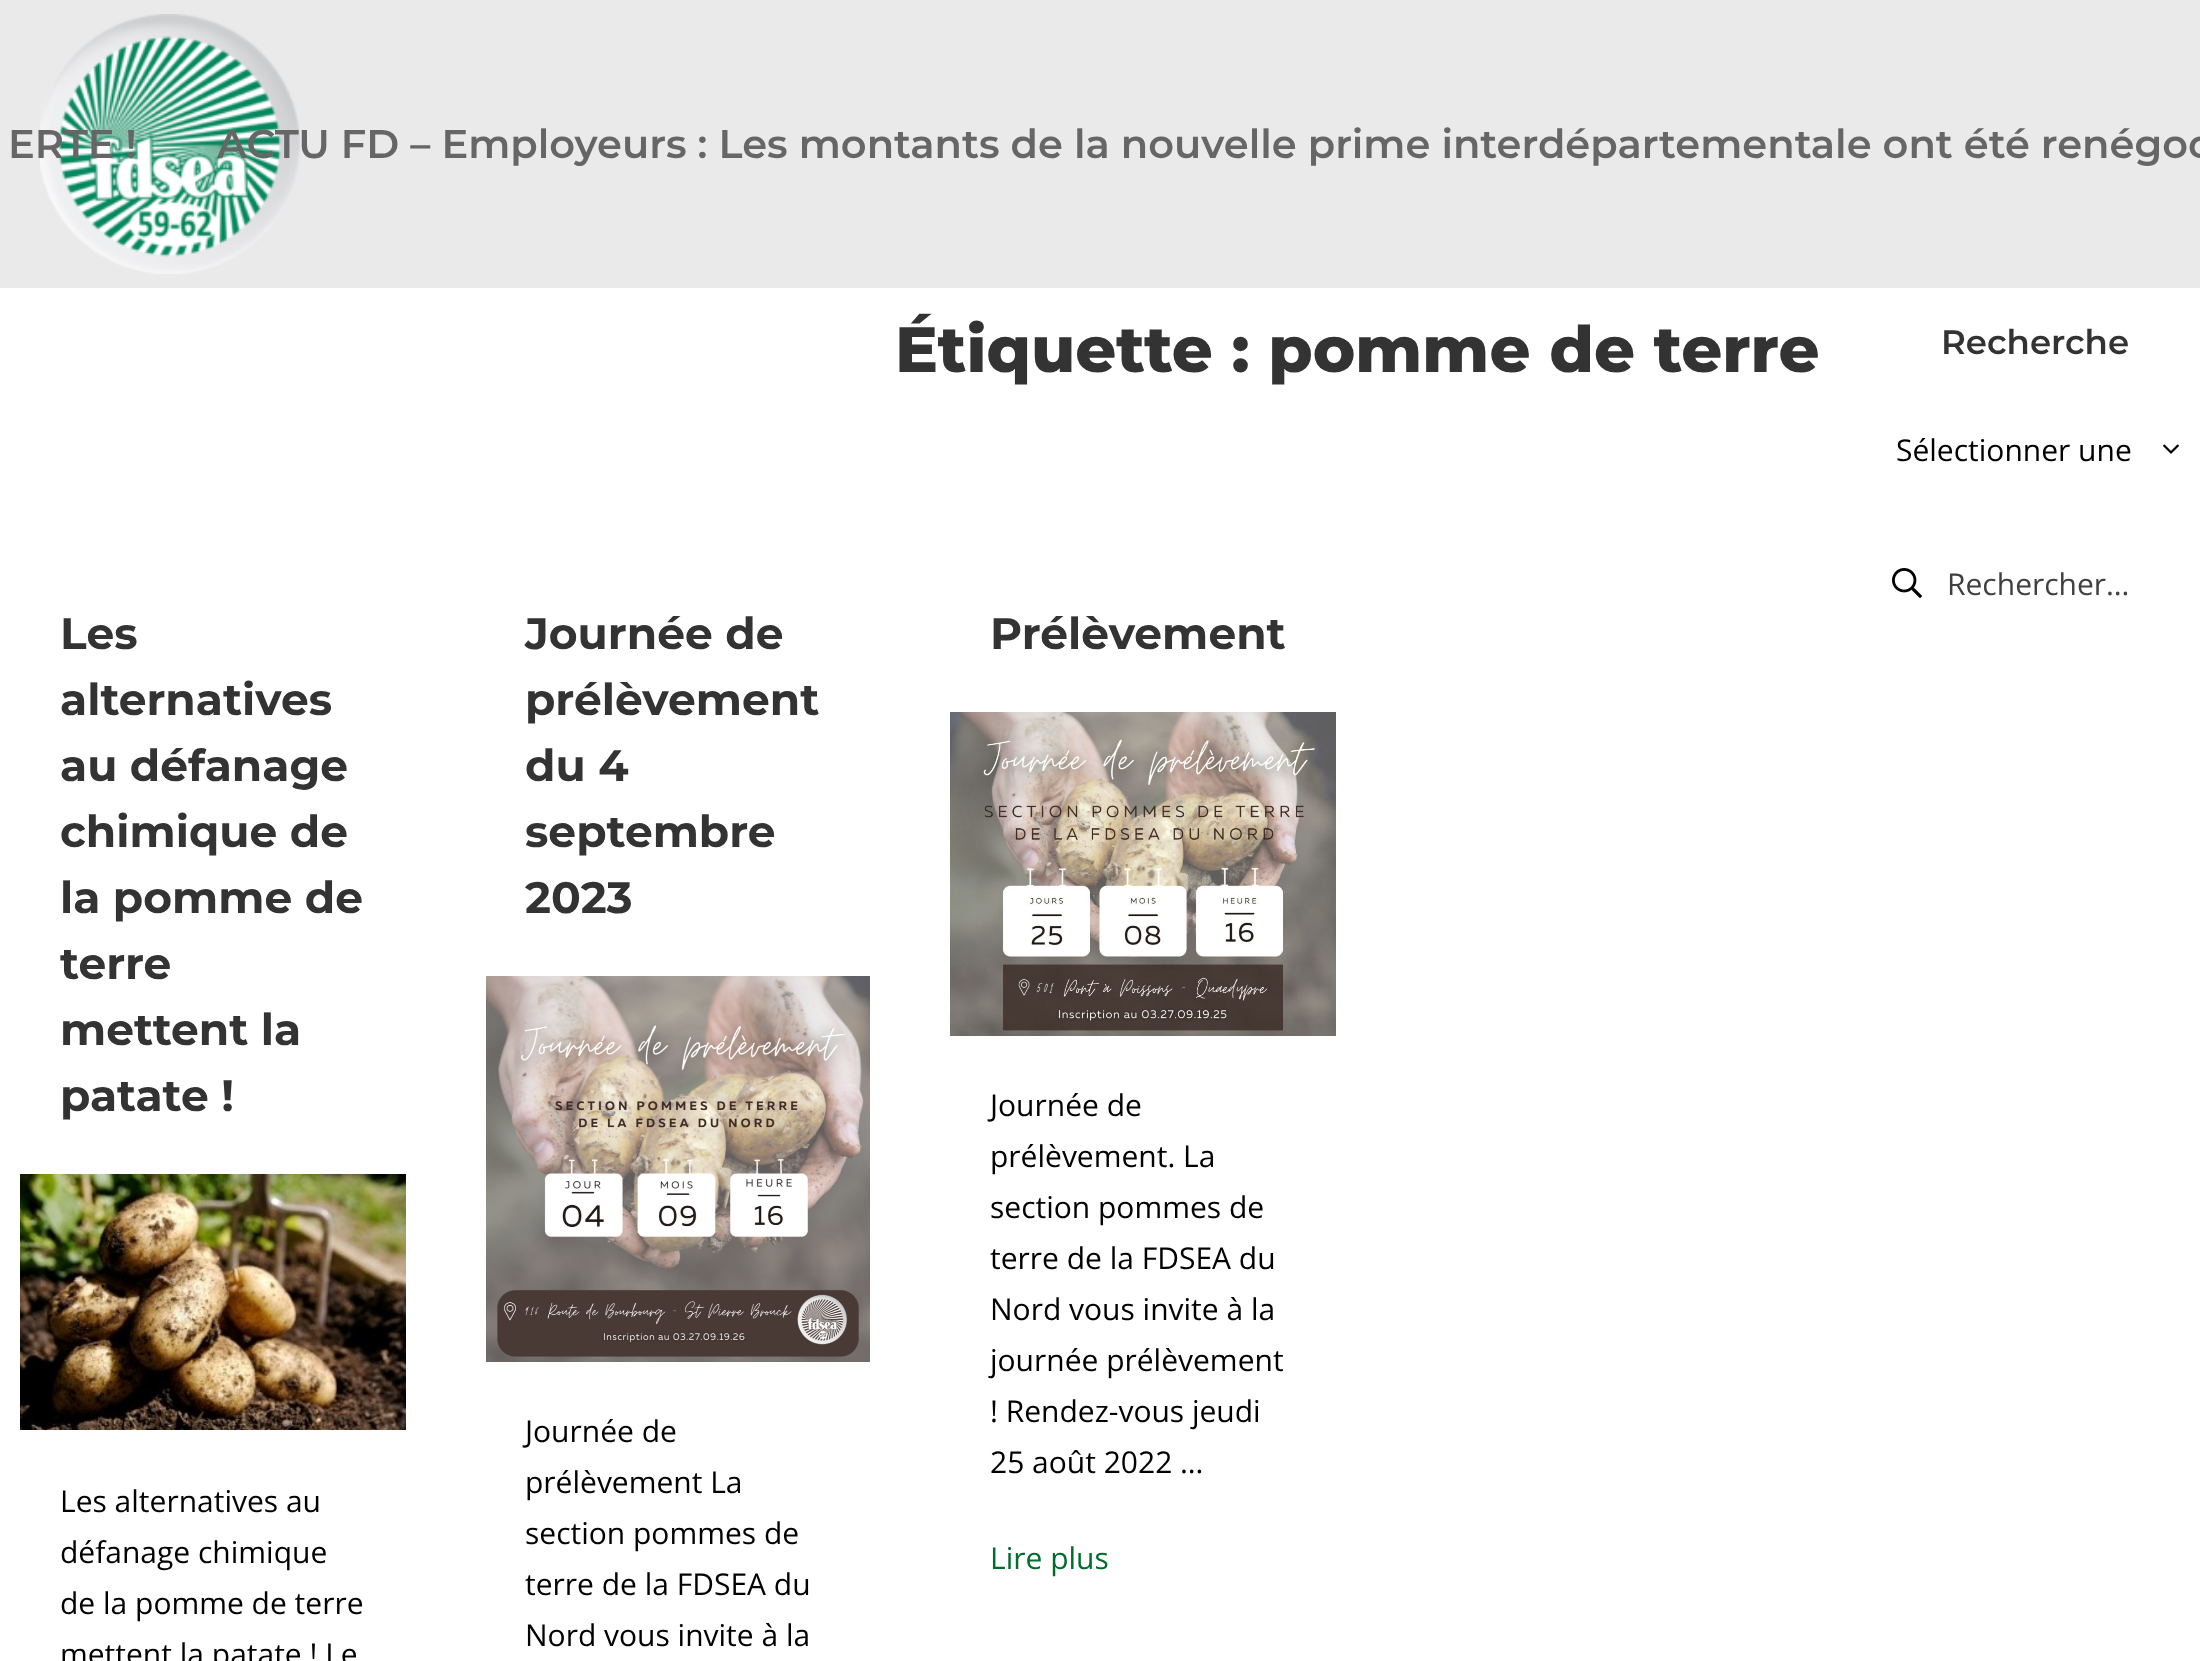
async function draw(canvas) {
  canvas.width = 2200;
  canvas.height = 1661;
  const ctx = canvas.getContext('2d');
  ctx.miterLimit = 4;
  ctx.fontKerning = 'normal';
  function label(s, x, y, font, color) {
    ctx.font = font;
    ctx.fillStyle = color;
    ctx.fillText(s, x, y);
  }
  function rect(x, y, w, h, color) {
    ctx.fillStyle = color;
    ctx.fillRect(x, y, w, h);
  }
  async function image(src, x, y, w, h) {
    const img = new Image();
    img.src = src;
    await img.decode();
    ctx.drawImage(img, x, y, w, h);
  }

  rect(0, 0, 2200, 1661, '#fff');
  rect(0, 0, 2200, 288, '#eaeaea');
  await image('assets/img1.png', 40, 14, 260, 260);
  label('ERTE !', 8, 158, '600 40px Montserrat', '#666');
  label('ACTU FD – Employeurs : Les montants de la nouvelle prime interdépartementale ont été renégoc', 217, 158, '600 40px Montserrat', '#666');
  label('Étiquette : pomme de terre', 895, 372, '800 64px Montserrat', '#333');
  label('Les', 60, 649, 'bold 44px Montserrat', '#333');
  label('alternatives', 60, 715, 'bold 44px Montserrat', '#333');
  label('au défanage', 60, 781, 'bold 44px Montserrat', '#333');
  label('chimique de', 60, 847, 'bold 44px Montserrat', '#333');
  label('la pomme de', 60, 913, 'bold 44px Montserrat', '#333');
  label('terre', 60, 979, 'bold 44px Montserrat', '#333');
  label('mettent la', 60, 1045, 'bold 44px Montserrat', '#333');
  label('patate !', 60, 1111, 'bold 44px Montserrat', '#333');
  await image('assets/img2.png', 20, 1174, 386, 256);
  label('Les alternatives au', 60, 1512, '30px Open Sans', '#000');
  label('défanage chimique', 60, 1563, '30px Open Sans', '#000');
  label('de la pomme de terre', 60, 1614, '30px Open Sans', '#000');
  label('mettent la patate ! Le', 60, 1665, '30px Open Sans', '#000');
  label('Journée de', 525, 649, 'bold 44px Montserrat', '#333');
  label('prélèvement', 525, 715, 'bold 44px Montserrat', '#333');
  label('du 4', 525, 781, 'bold 44px Montserrat', '#333');
  label('septembre', 525, 847, 'bold 44px Montserrat', '#333');
  label('2023', 525, 913, 'bold 44px Montserrat', '#333');
  await image('assets/img3.png', 486, 976, 384, 386);
  label('Journée de', 525, 1442, '30px Open Sans', '#000');
  label('prélèvement La', 525, 1493, '30px Open Sans', '#000');
  label('section pommes de', 525, 1544, '30px Open Sans', '#000');
  label('terre de la FDSEA du', 525, 1595, '30px Open Sans', '#000');
  label('Nord vous invite à la', 525, 1646, '30px Open Sans', '#000');
  label('Prélèvement', 990, 649, 'bold 44px Montserrat', '#333');
  await image('assets/img4.png', 950, 712, 386, 324);
  label('Journée de', 990, 1116, '30px Open Sans', '#000');
  label('prélèvement. La', 990, 1167, '30px Open Sans', '#000');
  label('section pommes de', 990, 1218, '30px Open Sans', '#000');
  label('terre de la FDSEA du', 990, 1269, '30px Open Sans', '#000');
  label('Nord vous invite à la', 990, 1320, '30px Open Sans', '#000');
  label('journée prélèvement', 990, 1371, '30px Open Sans', '#000');
  label('! Rendez-vous jeudi', 990, 1422, '30px Open Sans', '#000');
  label('25 août 2022 …', 990, 1473, '30px Open Sans', '#000');
  label('Lire plus', 990, 1569, '30px Open Sans', '#006d2d');
  label('Recherche', 1941, 354, '600 34px Montserrat', '#333');
  await image('assets/img5.png', 2163, 444, 16, 10);
  label('Sélectionner une', 1896, 461, '30px Open Sans', '#000');
  await image('assets/img6.png', 1892, 568, 30, 30);
  label('Rechercher…', 1947, 595, '30px Open Sans', '#404040');
}

draw(document.querySelector('canvas'));
